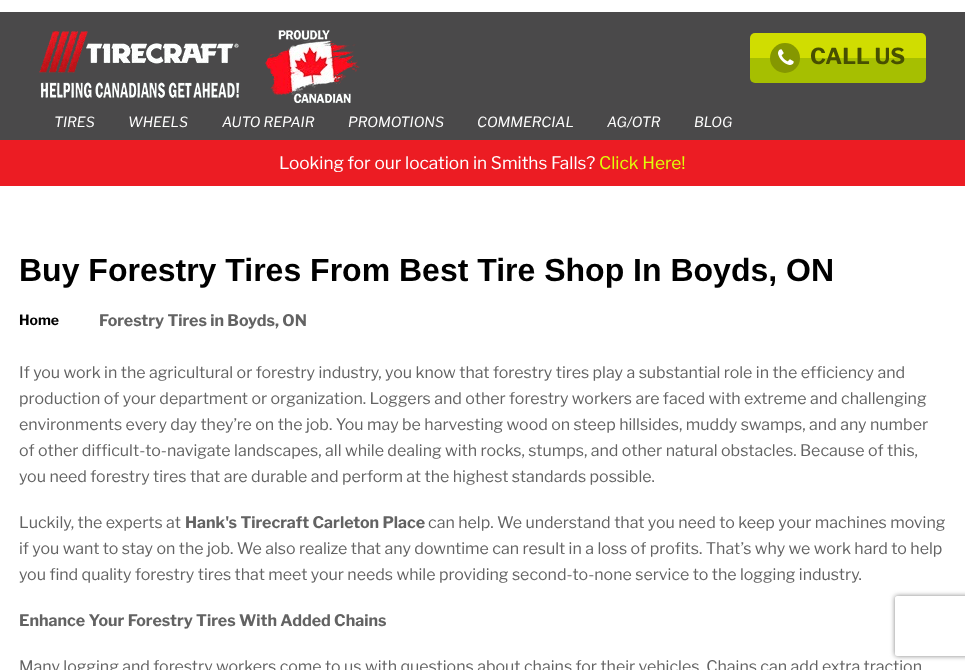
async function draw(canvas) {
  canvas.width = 965;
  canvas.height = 670;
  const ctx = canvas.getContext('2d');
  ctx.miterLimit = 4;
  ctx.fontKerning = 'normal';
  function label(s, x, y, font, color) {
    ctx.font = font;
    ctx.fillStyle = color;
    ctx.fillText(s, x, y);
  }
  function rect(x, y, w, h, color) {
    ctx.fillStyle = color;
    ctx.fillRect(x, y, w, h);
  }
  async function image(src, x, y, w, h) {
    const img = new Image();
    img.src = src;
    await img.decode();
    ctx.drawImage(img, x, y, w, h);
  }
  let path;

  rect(0, 0, 965, 670, '#fff');
  rect(0, 12, 965, 128, '#4a494a');
  await image('assets/img1.png', 39, 30, 321, 73);
  ctx.fillStyle = '#d0dd01';
  ctx.beginPath();
  ctx.roundRect(750, 33, 176, 25, [5, 5, 0, 0]);
  ctx.fill();
  ctx.fillStyle = '#a6bf01';
  ctx.beginPath();
  ctx.roundRect(750, 58, 176, 25, [0, 0, 5, 5]);
  ctx.fill();
  ctx.fillStyle = '#859701';
  ctx.beginPath();
  ctx.arc(785, 58, 15, 0, 2 * Math.PI);
  ctx.fill();
  await image('assets/img2.png', 778, 49, 16, 16);
  label('CALL US', 810, 64, 'bold 22px Libre Franklin', '#474f01');
  label('TIRES', 54, 127, 'italic 14px Libre Franklin', '#fff');
  label('WHEELS', 128, 127, 'italic 14px Libre Franklin', '#fff');
  label('AUTO REPAIR', 222, 127, 'italic 14px Libre Franklin', '#fff');
  label('PROMOTIONS', 348, 127, 'italic 14px Libre Franklin', '#fff');
  label('COMMERCIAL', 477, 127, 'italic 14px Libre Franklin', '#fff');
  label('AG/OTR', 607, 127, 'italic 14px Libre Franklin', '#fff');
  label('BLOG', 694, 127, 'italic 14px Libre Franklin', '#fff');
  rect(0, 140, 965, 46, '#ec1c23');
  label('Looking for our location in Smiths Falls?', 279, 169, '17.25px Libre Franklin', '#fff');
  label('Click Here!', 599, 169, '17.25px Libre Franklin', '#dfff0a');
  label('Buy Forestry Tires From Best Tire Shop In Boyds, ON', 19, 281, 'bold 32px Liberation Sans', '#000');
  label('Home', 19, 325, 'bold 14px Libre Franklin', '#000');
  label('Forestry Tires in Boyds, ON', 99, 326, 'bold 16px Libre Franklin', '#636363');
  label('If you work in the agricultural or forestry industry, you know that forestry tires play a substantial role in the efficiency and', 19, 378, '16px Libre Franklin', '#636363');
  label('production of your department or organization. Loggers and other forestry workers are faced with extreme and challenging', 19, 404, '16px Libre Franklin', '#636363');
  label('environments every day they’re on the job. You may be harvesting wood on steep hillsides, muddy swamps, and any number', 19, 430, '16px Libre Franklin', '#636363');
  label('of other difficult-to-navigate landscapes, all while dealing with rocks, stumps, and other natural obstacles. Because of this,', 19, 456, '16px Libre Franklin', '#636363');
  label('you need forestry tires that are durable and perform at the highest standards possible.', 19, 482, '16px Libre Franklin', '#636363');
  label('Luckily, the experts at', 19, 528, '16px Libre Franklin', '#636363');
  label('Hank\'s Tirecraft Carleton Place', 185, 528, 'bold 16px Libre Franklin', '#636363');
  label('can help. We understand that you need to keep your machines moving', 428, 528, '16px Libre Franklin', '#636363');
  label('if you want to stay on the job. We also realize that any downtime can result in a loss of profits. That’s why we work hard to help', 19, 554, '16px Libre Franklin', '#636363');
  label('you find quality forestry tires that meet your needs while providing second-to-none service to the logging industry.', 19, 580, '16px Libre Franklin', '#636363');
  label('Enhance Your Forestry Tires With Added Chains', 19, 626, 'bold 16px Libre Franklin', '#636363');
  label('Many logging and forestry workers come to us with questions about chains for their vehicles. Chains can add extra traction', 19, 672, '16px Libre Franklin', '#636363');
  ctx.save();
  path = new Path2D('M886 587H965V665H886ZM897 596H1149C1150 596 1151 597 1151 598V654C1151 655 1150 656 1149 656H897C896 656 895 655 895 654V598C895 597 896 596 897 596Z');
  ctx.clip(path, 'evenodd');
  ctx.fillStyle = '#808080';
  ctx.filter = 'blur(2.5px)';
  ctx.beginPath();
  ctx.roundRect(895, 596, 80, 60, 2);
  ctx.fill();
  ctx.filter = 'none';
  ctx.restore();
}

draw(document.querySelector('canvas'));
